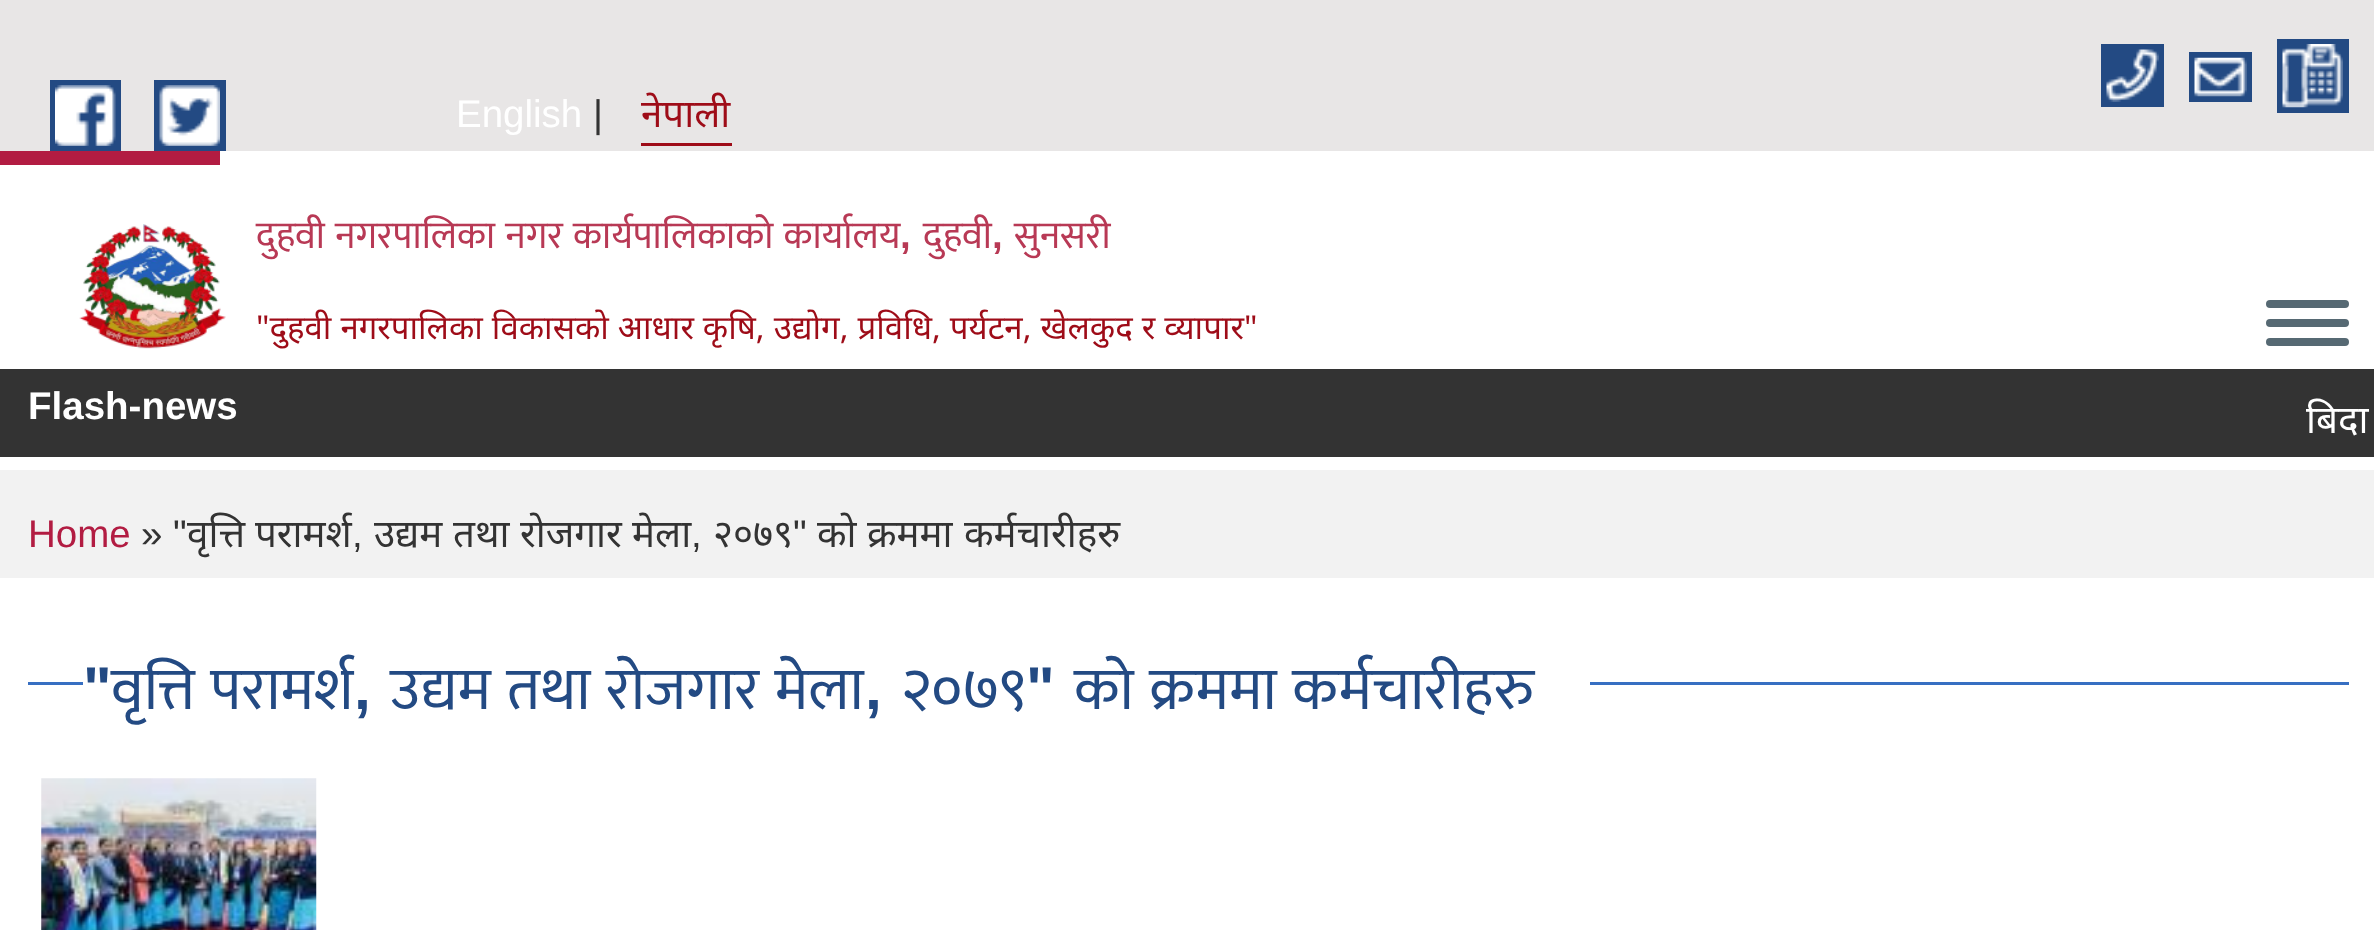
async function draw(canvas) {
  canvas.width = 2374;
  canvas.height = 930;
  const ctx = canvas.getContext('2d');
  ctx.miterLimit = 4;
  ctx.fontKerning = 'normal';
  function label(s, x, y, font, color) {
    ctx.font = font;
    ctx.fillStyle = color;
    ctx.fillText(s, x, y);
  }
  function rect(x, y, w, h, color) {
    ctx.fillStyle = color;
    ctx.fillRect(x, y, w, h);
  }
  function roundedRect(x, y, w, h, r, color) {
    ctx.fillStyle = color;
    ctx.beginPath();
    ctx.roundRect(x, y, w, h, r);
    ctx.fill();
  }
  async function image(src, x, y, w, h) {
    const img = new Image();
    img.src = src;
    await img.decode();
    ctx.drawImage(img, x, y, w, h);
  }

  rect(0, 0, 2374, 930, '#fff');
  rect(0, 0, 2374, 151, '#e8e6e6');
  rect(50, 80, 71, 71, '#234a83');
  rect(154, 80, 72, 71, '#234a83');
  await image('assets/img1.png', 55, 85, 61, 61);
  await image('assets/img2.png', 159, 85, 61, 61);
  label('English', 456, 127, '38.5px Liberation Sans', '#fff');
  label('|', 593, 127, '38.5px Liberation Sans', '#333');
  rect(641, 143, 91, 3, '#9e0c18');
  label('नेपाली', 641, 127, '38.5px Noto Sans', '#9e0c18');
  rect(2101, 44, 63, 63, '#234a83');
  rect(2277, 39, 72, 74, '#234a83');
  await image('assets/img3.png', 2106, 49, 53, 53);
  rect(2189, 52, 63, 50, '#234a83');
  await image('assets/img4.png', 2282, 44, 61, 64);
  await image('assets/img5.png', 2194, 57, 53, 40);
  rect(0, 151, 220, 14, '#b21c42');
  await image('assets/img6.png', 79, 224, 147, 125);
  ctx.wordSpacing = '1.5px';
  label('दुहवी नगरपालिका नगर कार्यपालिकाको कार्यालय', 256, 248, '38.5px Mukta', '#b83955');
  ctx.wordSpacing = '0px';
  label(',', 900, 248, 'bold 38.5px Liberation Sans', '#b83955');
  label('दुहवी', 923, 248, '38.5px Mukta', '#b83955');
  label(',', 992, 248, 'bold 38.5px Liberation Sans', '#b83955');
  label('सुनसरी', 1014, 248, '38.5px Mukta', '#b83955');
  ctx.wordSpacing = '0.4px';
  label('"दुहवी नगरपालिका विकासको आधार कृषि, उद्योग, प्रविधि, पर्यटन, खेलकुद र व्यापार"', 256, 339, '33px Noto Sans', '#9e0c18');
  roundedRect(2266, 300, 83, 8, 4, '#566973');
  roundedRect(2266, 319, 83, 8, 4, '#566973');
  roundedRect(2266, 338, 83, 8, 4, '#566973');
  rect(0, 369, 2374, 88, '#333');
  ctx.wordSpacing = '0px';
  label('Flash-news', 28, 419, 'bold 38.5px Liberation Sans', '#fff');
  ctx.wordSpacing = '1px';
  label('बिदा', 2306, 433, '38.5px Noto Sans', '#fff');
  rect(0, 470, 2374, 108, '#f2f2f2');
  ctx.wordSpacing = '0px';
  label('Home', 28, 547, '38.5px Liberation Sans', '#b21c42');
  label('» "', 141, 547, '38.5px Liberation Sans', '#333');
  label('वृत्ति', 187, 547, '38.5px Noto Sans', '#333');
  label('परामर्श', 255, 547, '38.5px Noto Sans', '#333');
  label(',', 352, 547, '38.5px Liberation Sans', '#333');
  label('उद्यम', 374, 547, '38.5px Noto Sans', '#333');
  label('तथा', 453, 547, '38.5px Noto Sans', '#333');
  label('रोजगार', 520, 547, '38.5px Noto Sans', '#333');
  label('मेला', 632, 547, '38.5px Noto Sans', '#333');
  label(',', 691, 547, '38.5px Liberation Sans', '#333');
  label('२०७९', 713, 547, '38.5px Noto Sans', '#333');
  label('"', 793, 547, '38.5px Liberation Sans', '#333');
  label('को', 817, 547, '38.5px Noto Sans', '#333');
  label('क्रममा', 867, 547, '38.5px Noto Sans', '#333');
  label('कर्मचारीहरु', 964, 547, '38.5px Noto Sans', '#333');
  rect(28, 682, 2321, 3, '#376fc2');
  rect(83, 682, 1507, 3, '#fff');
  label('"', 83, 709, 'bold 60.5px Liberation Sans', '#234a83');
  ctx.wordSpacing = '2px';
  label('वृत्ति परामर्श', 111, 709, '60.5px Mukta', '#234a83');
  label('उद्यम तथा रोजगार मेला', 390, 709, '60.5px Mukta', '#234a83');
  label('को क्रममा कर्मचारीहरु', 1074, 709, '60.5px Mukta', '#234a83');
  ctx.wordSpacing = '0px';
  label(',', 354, 709, 'bold 60.5px Liberation Sans', '#234a83');
  label(',', 865, 709, 'bold 60.5px Liberation Sans', '#234a83');
  label('२०७९', 901, 709, '60.5px Mukta', '#234a83');
  label('"', 1026, 709, 'bold 60.5px Liberation Sans', '#234a83');
  await image('assets/img7.png', 41, 778, 276, 152);
}

draw(document.querySelector('canvas'));
